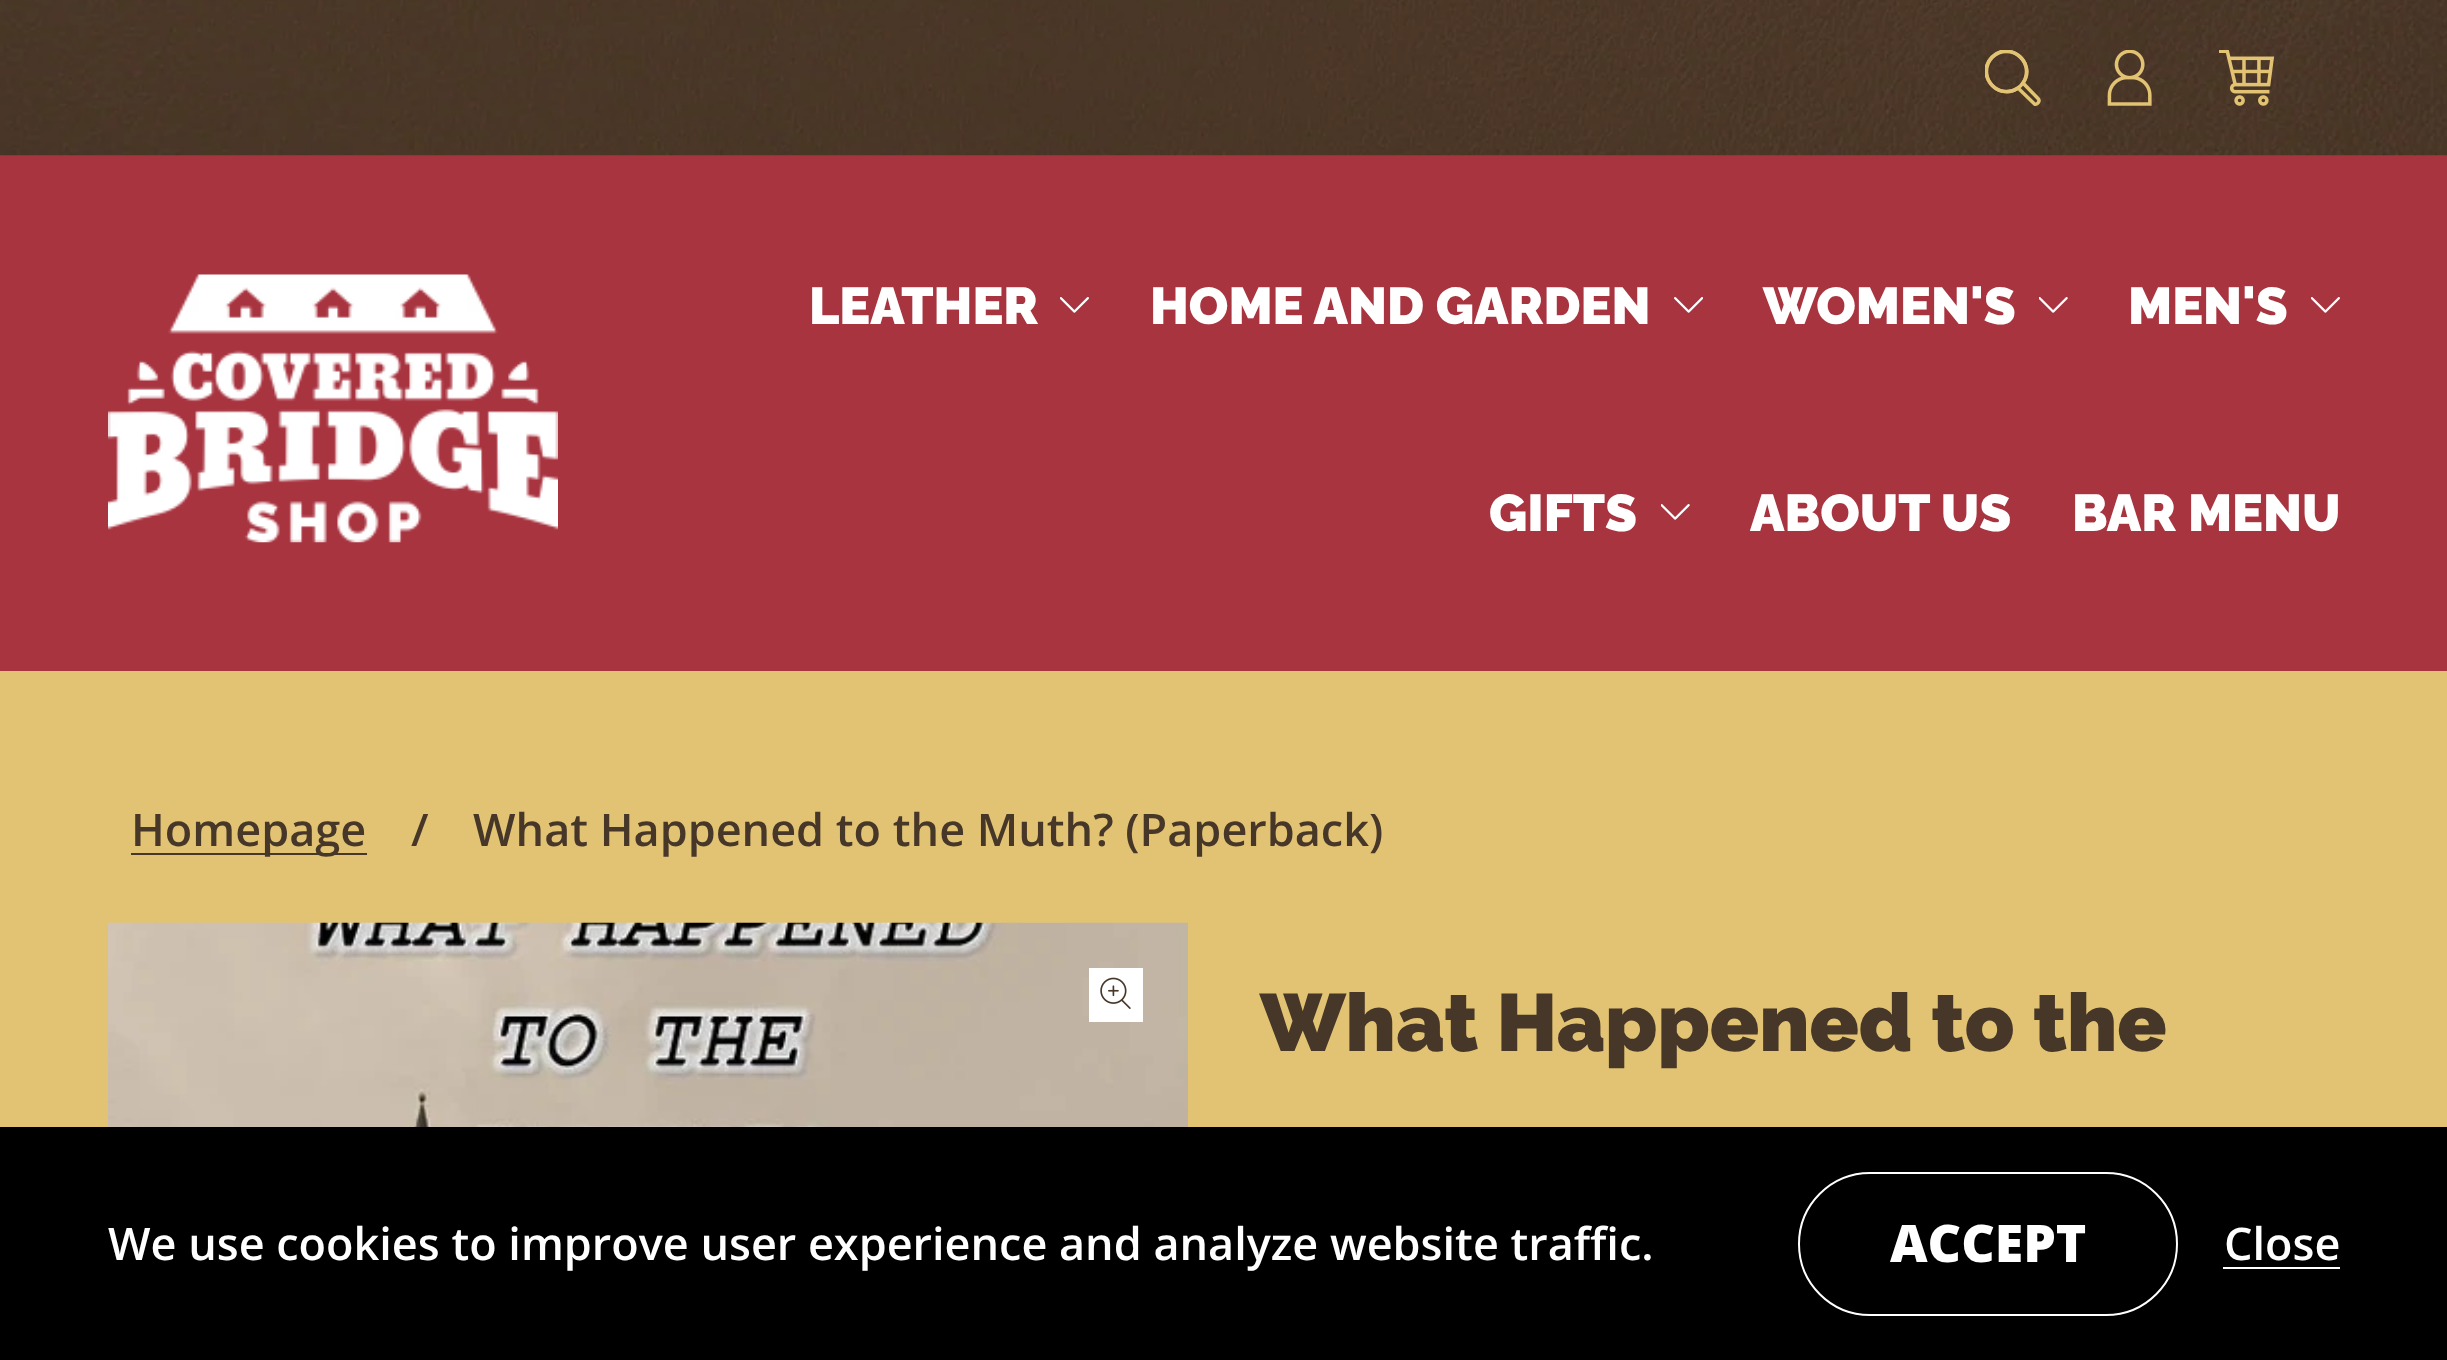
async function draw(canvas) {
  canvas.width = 2447;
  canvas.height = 1360;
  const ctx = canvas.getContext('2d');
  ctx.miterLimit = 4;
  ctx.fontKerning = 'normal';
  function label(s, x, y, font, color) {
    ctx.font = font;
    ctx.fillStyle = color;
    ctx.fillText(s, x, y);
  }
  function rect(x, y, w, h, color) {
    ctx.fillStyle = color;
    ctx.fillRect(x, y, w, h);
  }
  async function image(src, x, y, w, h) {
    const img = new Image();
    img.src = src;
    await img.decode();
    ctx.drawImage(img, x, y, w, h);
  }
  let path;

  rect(0, 0, 2447, 1360, '#e2c374');
  rect(0, 155, 2447, 516, '#a83440');
  await image('assets/img1.png', 0, 0, 2447, 156);
  ctx.save();
  ctx.beginPath();
  ctx.rect(1985, 50, 56, 56);
  ctx.clip();
  path = new Path2D('M2038 98.5L2023 83C2037 64 2010 39.5 1992 57C1974.5 75 1999 101.5 2018 88L2034.5 104C2037.5 105 2040.5 101 2038 98.5Z');
  ctx.strokeStyle = '#e2c374';
  ctx.lineWidth = 3.5;
  ctx.stroke(path);
  ctx.beginPath();
  ctx.arc(2006.5, 71.5, 20, 0, 2 * Math.PI);
  ctx.stroke();
  ctx.restore();
  await image('assets/img2.png', 2107, 50, 45, 56);
  await image('assets/img3.png', 2219, 50, 56, 56);
  await image('assets/img4.png', 108, 274, 450, 269);
  label('LEATHER', 809, 324, '900 51.75px Raleway', '#fff');
  await image('assets/img5.png', 1060, 297, 29, 16);
  label('HOME AND GARDEN', 1150, 324, '900 51.75px Raleway', '#fff');
  await image('assets/img6.png', 1674, 297, 29, 16);
  label('WOMEN\'S', 1763, 324, '900 51.75px Raleway', '#fff');
  await image('assets/img7.png', 2039, 297, 29, 16);
  label('MEN\'S', 2128, 324, '900 51.75px Raleway', '#fff');
  await image('assets/img5.png', 2311, 297, 29, 16);
  label('GIFTS', 1489, 531, '900 51.75px Raleway', '#fff');
  await image('assets/img7.png', 1661, 504, 29, 16);
  label('ABOUT US', 1750, 531, '900 51.75px Raleway', '#fff');
  label('BAR MENU', 2072, 531, '900 51.75px Raleway', '#fff');
  rect(131, 853, 236, 2, '#473729');
  label('Homepage', 131, 846, '600 45px Open Sans', '#473729');
  label('/', 411, 846, '600 45px Open Sans', '#473729');
  label('What Happened to the Muth? (Paperback)', 473, 846, '600 45px Open Sans', '#473729');
  await image('assets/img8.png', 108, 922, 1080, 205);
  rect(1089, 968, 54, 54, '#fff');
  await image('assets/img9.png', 1100, 977, 31, 32);
  label('What Happened to the', 1260, 1051, '900 81px Raleway', '#473729');
  rect(0, 1127, 2447, 233, '#000');
  label('We use cookies to improve user experience and analyze website traffic.', 108, 1260, '600 45px Open Sans', '#fff');
  ctx.beginPath();
  ctx.roundRect(1799, 1173, 378, 142, 71);
  ctx.strokeStyle = '#fff';
  ctx.lineWidth = 2;
  ctx.stroke();
  label('ACCEPT', 1890, 1262, '800 51.75px Open Sans', '#fff');
  label('Close', 2224, 1260, '600 45px Open Sans', '#fff');
  rect(2223, 1267, 117, 2, '#fff');
}

draw(document.querySelector('canvas'));
